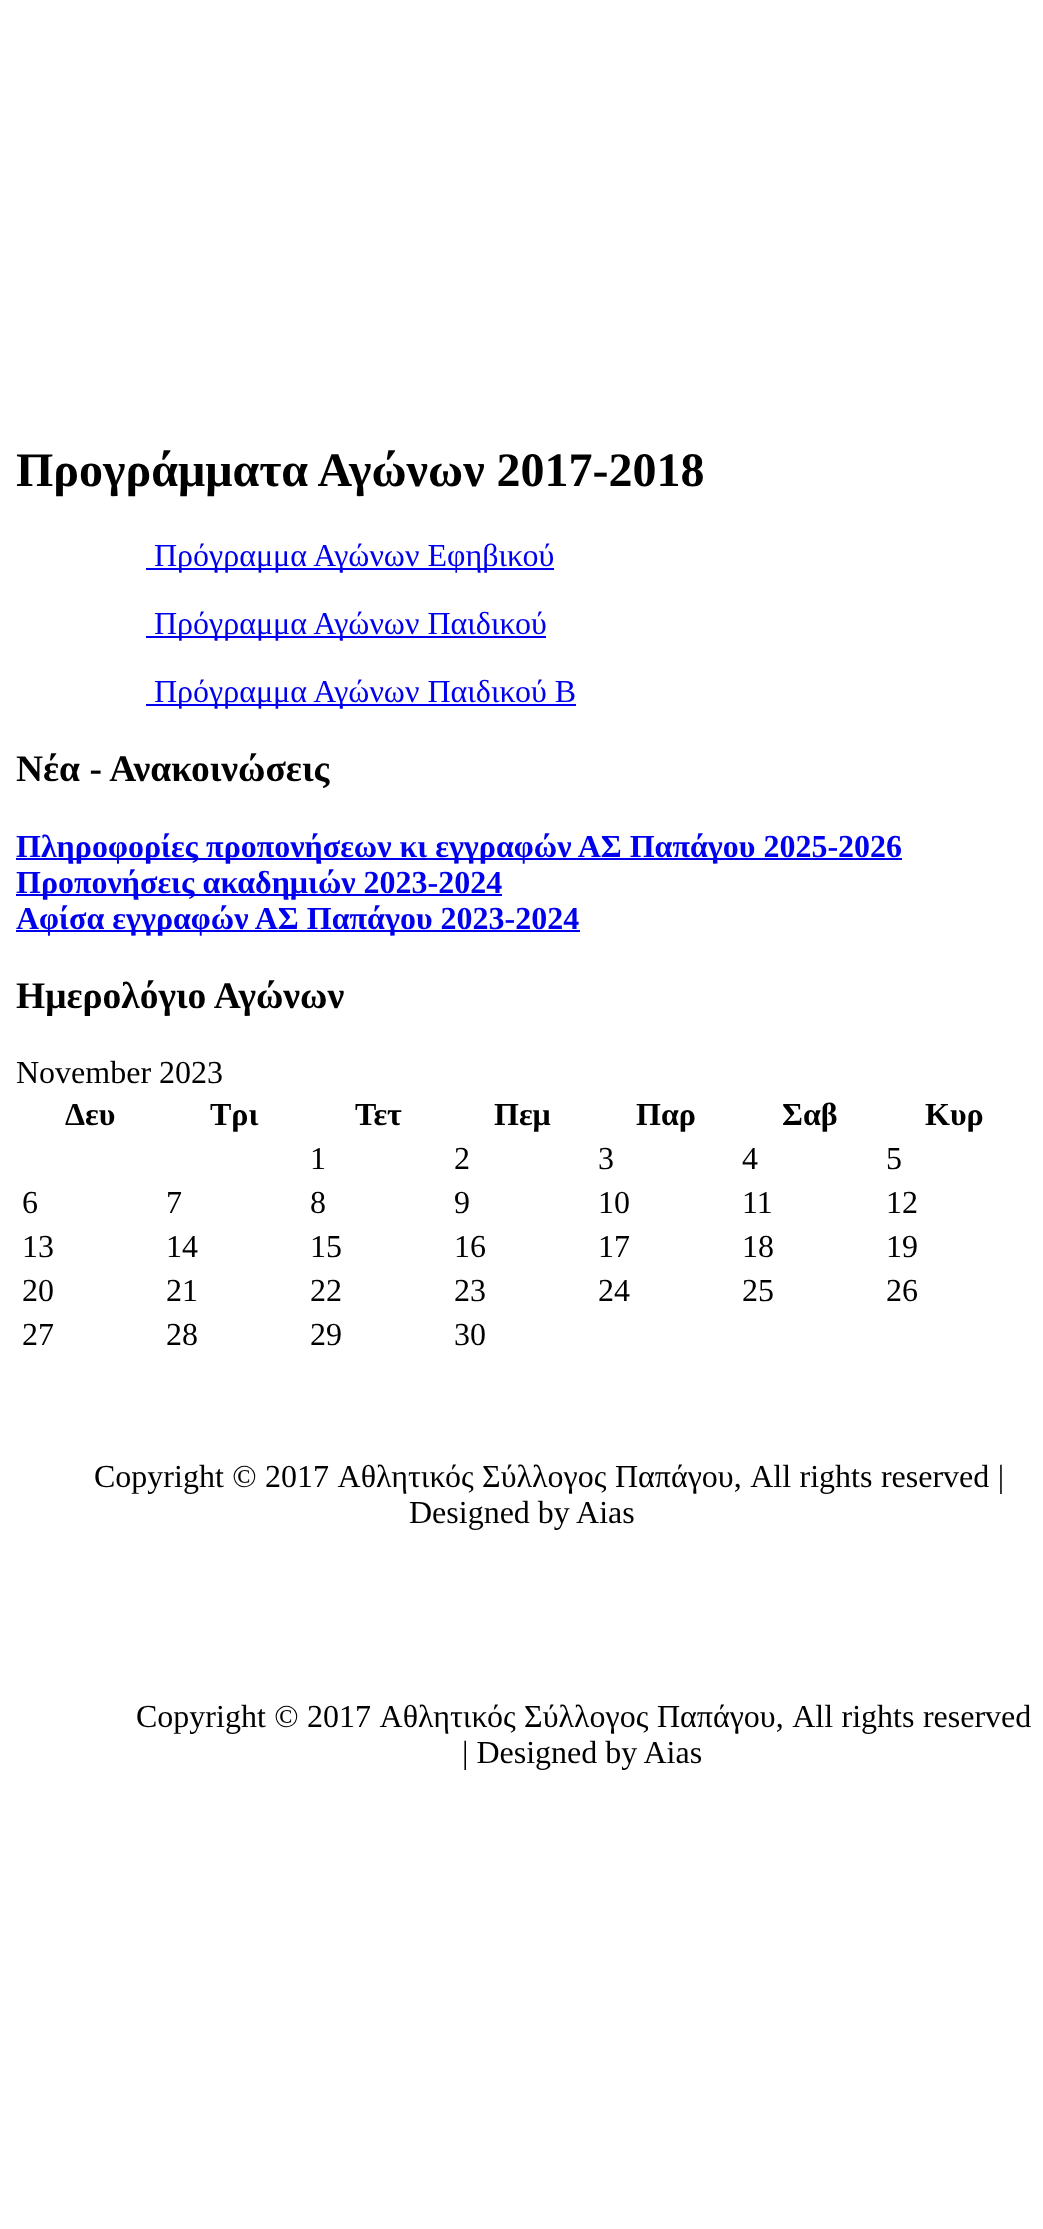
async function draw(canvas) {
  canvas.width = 1043;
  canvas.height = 2229;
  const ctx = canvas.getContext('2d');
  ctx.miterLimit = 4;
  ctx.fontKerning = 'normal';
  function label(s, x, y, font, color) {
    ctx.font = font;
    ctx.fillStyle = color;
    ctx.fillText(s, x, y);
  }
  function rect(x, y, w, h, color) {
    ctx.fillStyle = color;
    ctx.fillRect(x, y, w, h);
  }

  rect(0, 0, 1043, 2229, '#fff');
  label('Προγράμματα Αγώνων 2017-2018', 16, 486, 'bold 48px Liberation Serif', '#000');
  rect(146, 568, 408, 2, '#00e');
  label('Πρόγραμμα Αγώνων Εφηβικού', 154, 566, '32px Liberation Serif', '#00e');
  rect(146, 636, 400, 2, '#00e');
  label('Πρόγραμμα Αγώνων Παιδικού', 154, 634, '32px Liberation Serif', '#00e');
  rect(146, 704, 430, 2, '#00e');
  label('Πρόγραμμα Αγώνων Παιδικού Β', 154, 702, '32px Liberation Serif', '#00e');
  label('Νέα - Ανακοινώσεις', 16, 781, 'bold 37.5px Liberation Serif', '#000');
  rect(16, 858, 886, 2, '#00e');
  label('Πληροφορίες προπονήσεων κι εγγραφών ΑΣ Παπάγου 2025-2026', 16, 857, 'bold 32px Liberation Serif', '#00e');
  rect(16, 894, 486, 2, '#00e');
  label('Προπονήσεις ακαδημιών 2023-2024', 16, 893, 'bold 32px Liberation Serif', '#00e');
  rect(16, 930, 564, 2, '#00e');
  label('Αφίσα εγγραφών ΑΣ Παπάγου 2023-2024', 16, 929, 'bold 32px Liberation Serif', '#00e');
  label('Ημερολόγιο Αγώνων', 16, 1008, 'bold 37.5px Liberation Serif', '#000');
  label('November 2023', 16, 1083, '32px Liberation Serif', '#000');
  label('Δευ', 65, 1125, 'bold 32px Liberation Serif', '#000');
  label('Τρι', 210, 1125, 'bold 32px Liberation Serif', '#000');
  label('Τετ', 355, 1125, 'bold 32px Liberation Serif', '#000');
  label('Πεμ', 494, 1125, 'bold 32px Liberation Serif', '#000');
  label('Παρ', 636, 1125, 'bold 32px Liberation Serif', '#000');
  label('Σαβ', 782, 1125, 'bold 32px Liberation Serif', '#000');
  label('Κυρ', 925, 1125, 'bold 32px Liberation Serif', '#000');
  label('1', 310, 1169, '32px Liberation Serif', '#000');
  label('2', 454, 1169, '32px Liberation Serif', '#000');
  label('3', 598, 1169, '32px Liberation Serif', '#000');
  label('4', 742, 1169, '32px Liberation Serif', '#000');
  label('5', 886, 1169, '32px Liberation Serif', '#000');
  label('6', 22, 1213, '32px Liberation Serif', '#000');
  label('7', 166, 1213, '32px Liberation Serif', '#000');
  label('8', 310, 1213, '32px Liberation Serif', '#000');
  label('9', 454, 1213, '32px Liberation Serif', '#000');
  label('10', 598, 1213, '32px Liberation Serif', '#000');
  label('11', 742, 1213, '32px Liberation Serif', '#000');
  label('12', 886, 1213, '32px Liberation Serif', '#000');
  label('13', 22, 1257, '32px Liberation Serif', '#000');
  label('14', 166, 1257, '32px Liberation Serif', '#000');
  label('15', 310, 1257, '32px Liberation Serif', '#000');
  label('16', 454, 1257, '32px Liberation Serif', '#000');
  label('17', 598, 1257, '32px Liberation Serif', '#000');
  label('18', 742, 1257, '32px Liberation Serif', '#000');
  label('19', 886, 1257, '32px Liberation Serif', '#000');
  label('20', 22, 1301, '32px Liberation Serif', '#000');
  label('21', 166, 1301, '32px Liberation Serif', '#000');
  label('22', 310, 1301, '32px Liberation Serif', '#000');
  label('23', 454, 1301, '32px Liberation Serif', '#000');
  label('24', 598, 1301, '32px Liberation Serif', '#000');
  label('25', 742, 1301, '32px Liberation Serif', '#000');
  label('26', 886, 1301, '32px Liberation Serif', '#000');
  label('27', 22, 1345, '32px Liberation Serif', '#000');
  label('28', 166, 1345, '32px Liberation Serif', '#000');
  label('29', 310, 1345, '32px Liberation Serif', '#000');
  label('30', 454, 1345, '32px Liberation Serif', '#000');
  ctx.wordSpacing = '0.5px';
  label('Copyright © 2017 Αθλητικός Σύλλογος Παπάγου, All rights reserved |', 94, 1487, '32px Liberation Serif', '#000');
  ctx.wordSpacing = '0px';
  label('Designed by Aias', 409, 1523, '32px Liberation Serif', '#000');
  ctx.wordSpacing = '0.5px';
  label('Copyright © 2017 Αθλητικός Σύλλογος Παπάγου, All rights reserved', 136, 1727, '32px Liberation Serif', '#000');
  ctx.wordSpacing = '0px';
  label('| Designed by Aias', 462, 1763, '32px Liberation Serif', '#000');
}

draw(document.querySelector('canvas'));
